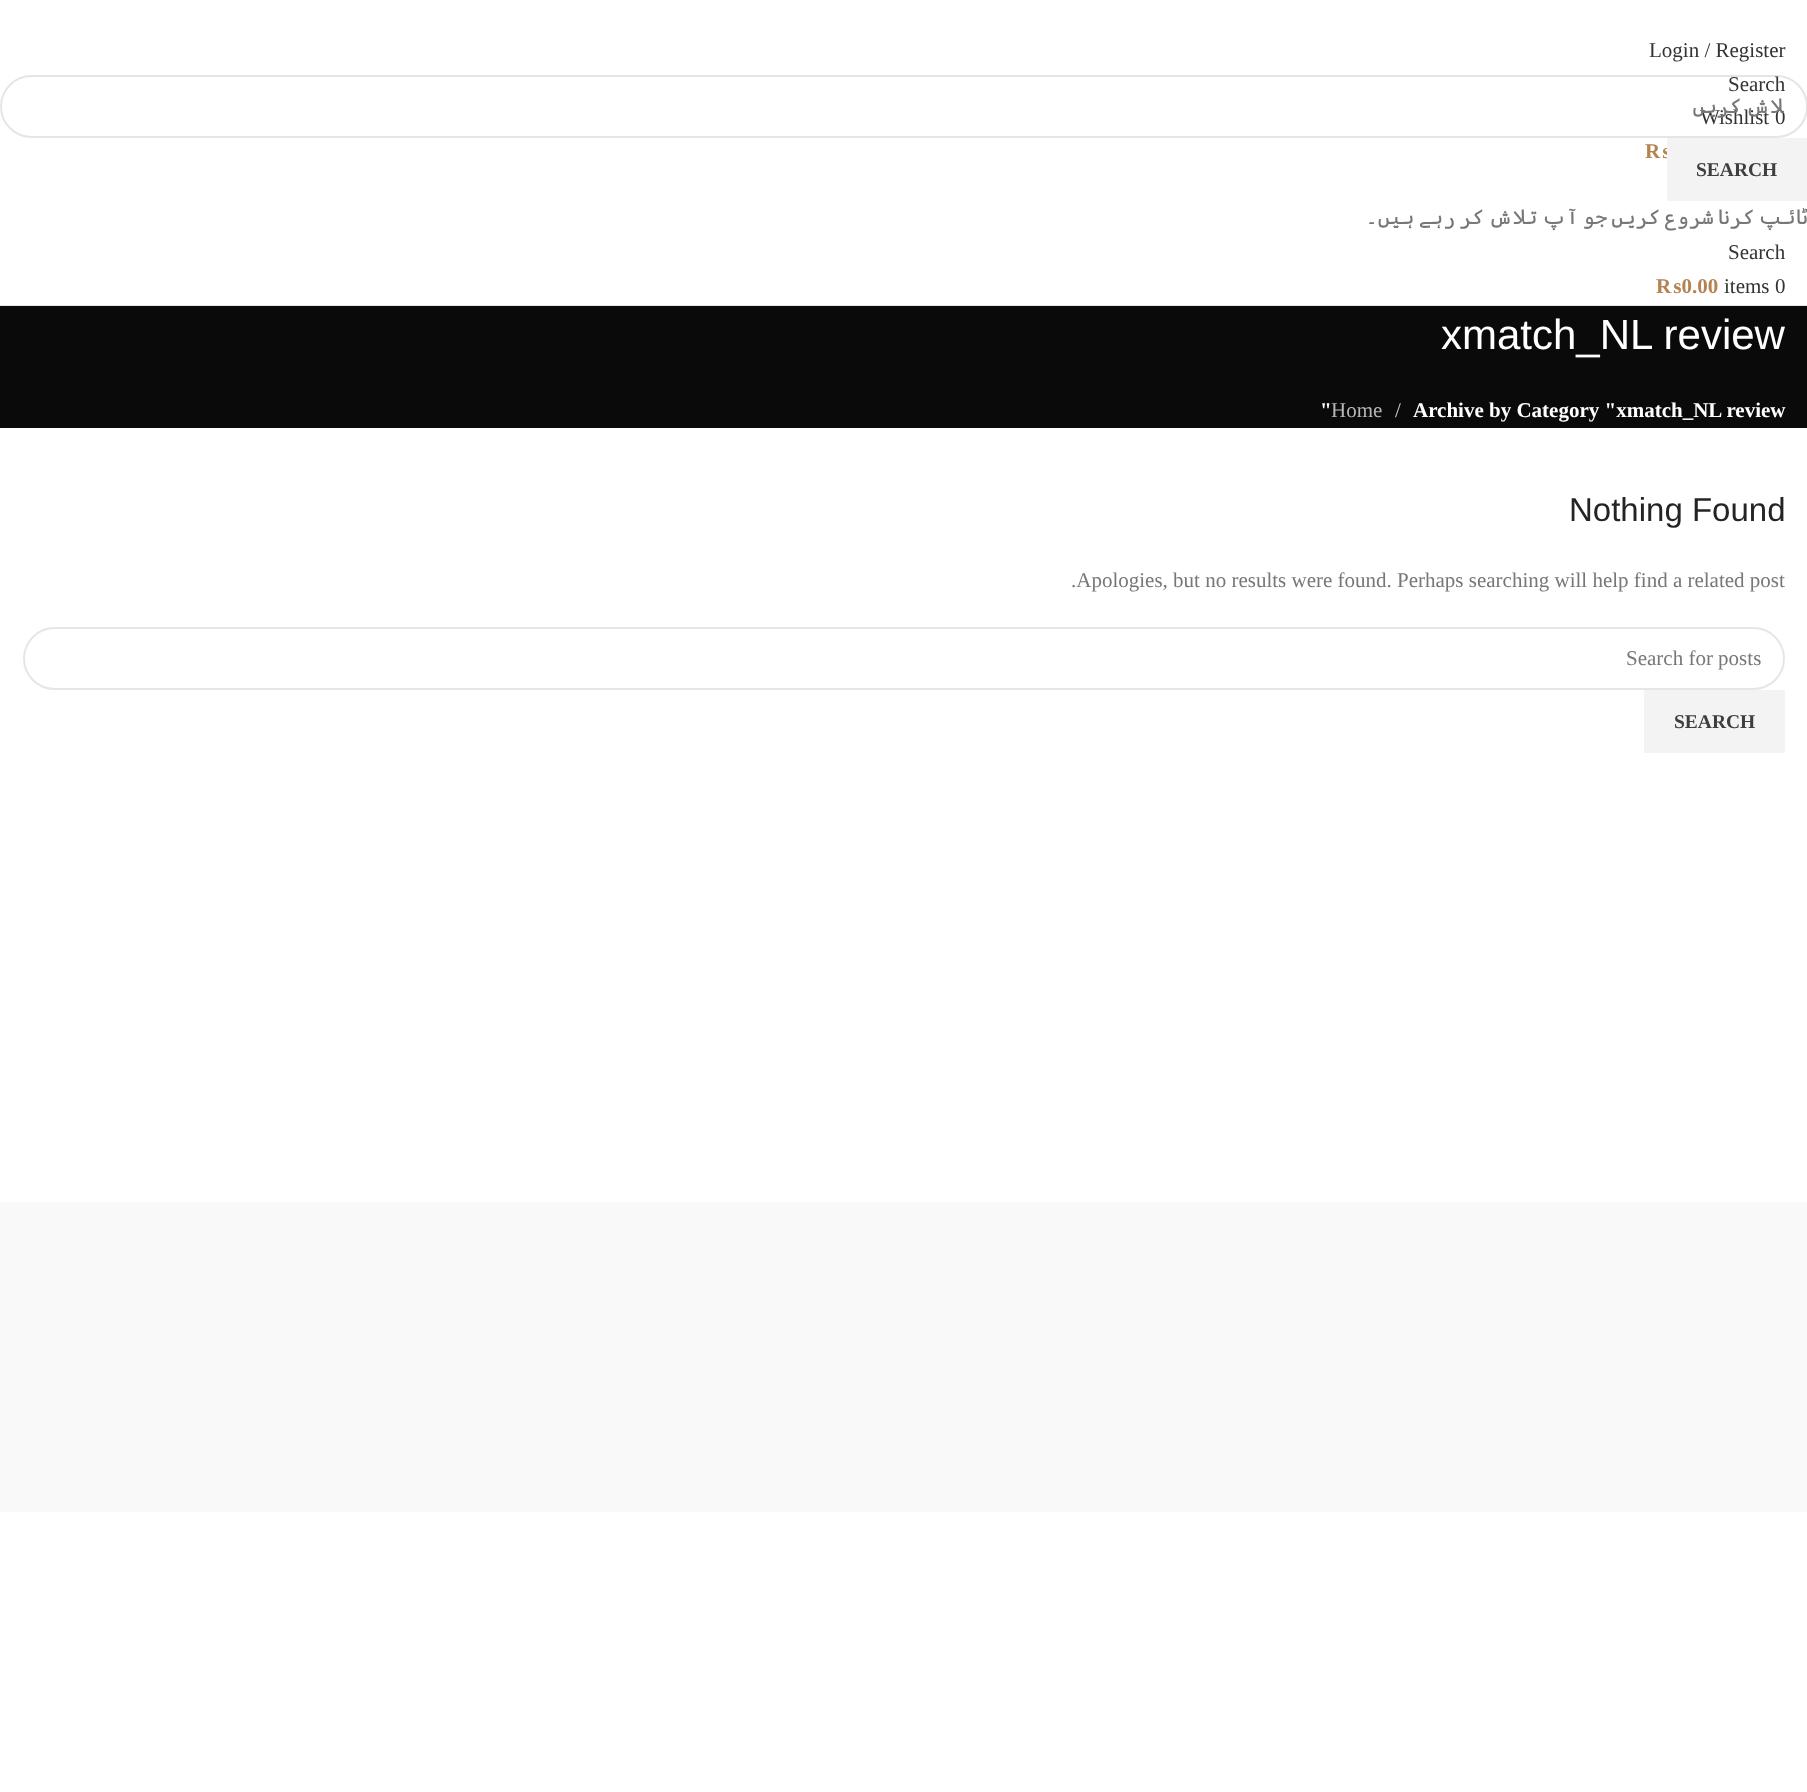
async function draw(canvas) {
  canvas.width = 1807;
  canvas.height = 1792;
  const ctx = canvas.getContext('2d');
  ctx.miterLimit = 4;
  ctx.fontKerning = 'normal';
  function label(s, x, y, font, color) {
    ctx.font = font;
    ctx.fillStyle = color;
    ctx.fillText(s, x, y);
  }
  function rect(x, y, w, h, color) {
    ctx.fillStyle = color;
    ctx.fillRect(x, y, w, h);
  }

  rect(0, 0, 1807, 1792, '#fff');
  rect(0, 305, 1807, 1, '#e6e6e6');
  label('Login / Register', 1649, 57, '21px Liberation Serif', '#333');
  label('Search', 1728, 91, '21px Liberation Serif', '#333');
  label('Wishlist', 1700, 124, '21px Liberation Serif', '#333');
  label('0', 1775, 124, '21px Liberation Serif', '#333');
  label('₨', 1645, 158, 'bold 21px Liberation Serif', '#b58352');
  label('Search', 1728, 259, '21px Liberation Serif', '#333');
  label('₨0.00', 1656, 293, 'bold 21px Liberation Serif', '#b58352');
  label('items', 1724, 293, '21px Liberation Serif', '#333');
  label('0', 1775, 293, '21px Liberation Serif', '#333');
  rect(0, 306, 1807, 122, '#0a0a0a');
  label('xmatch_NL review', 1441, 349, '42px Liberation Sans', '#fff');
  label('"', 1320, 417, 'bold 21px Liberation Serif', '#fff');
  label('Home', 1331, 417, '21px Liberation Serif', '#b6b6b6');
  label('/', 1395, 417, '21px Liberation Serif', '#cecece');
  label('Archive by Category "xmatch_NL review', 1413, 417, 'bold 21px Liberation Serif', '#fff');
  label('Nothing Found', 1569, 521, '33px Liberation Sans', '#242424');
  label('.Apologies, but no results were found. Perhaps searching will help find a related post', 1071, 587, '21px Liberation Serif', '#777');
  ctx.beginPath();
  ctx.roundRect(24, 628, 1760, 61, 30.5);
  ctx.strokeStyle = '#e6e6e6';
  ctx.lineWidth = 2;
  ctx.stroke();
  label('Search for posts', 1626, 665, '21px Liberation Serif', '#777');
  rect(1644, 690, 141, 63, '#f3f3f3');
  label('SEARCH', 1674, 728, 'bold 19.5px Liberation Serif', '#3e3e3e');
  rect(0, 1202, 1807, 310, '#f9f9f9');
  ctx.beginPath();
  ctx.roundRect(1, 76, 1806, 61, 30.5);
  ctx.strokeStyle = '#0000001a';
  ctx.stroke();
  ctx.save();
  ctx.beginPath();
  ctx.rect(24, 93, 1760, 26);
  ctx.clip();
  ctx.wordSpacing = '-8.25px';
  ctx.direction = 'rtl';
  label('تلاش کریں', 1795, 113, '21px Cascadia Code', '#777');
  ctx.restore();
  rect(1667, 138, 140, 63, '#f3f3f3');
  label('SEARCH', 1696, 176, 'bold 19.5px Liberation Serif', '#3e3e3e');
  ctx.wordSpacing = '-8.25px';
  ctx.direction = 'rtl';
  label('ٹائپ کرنا شروع کریں جو آپ تلاش کر رہے ہیں۔', 1808, 224, '21px Cascadia Code', '#777');
}

draw(document.querySelector('canvas'));
